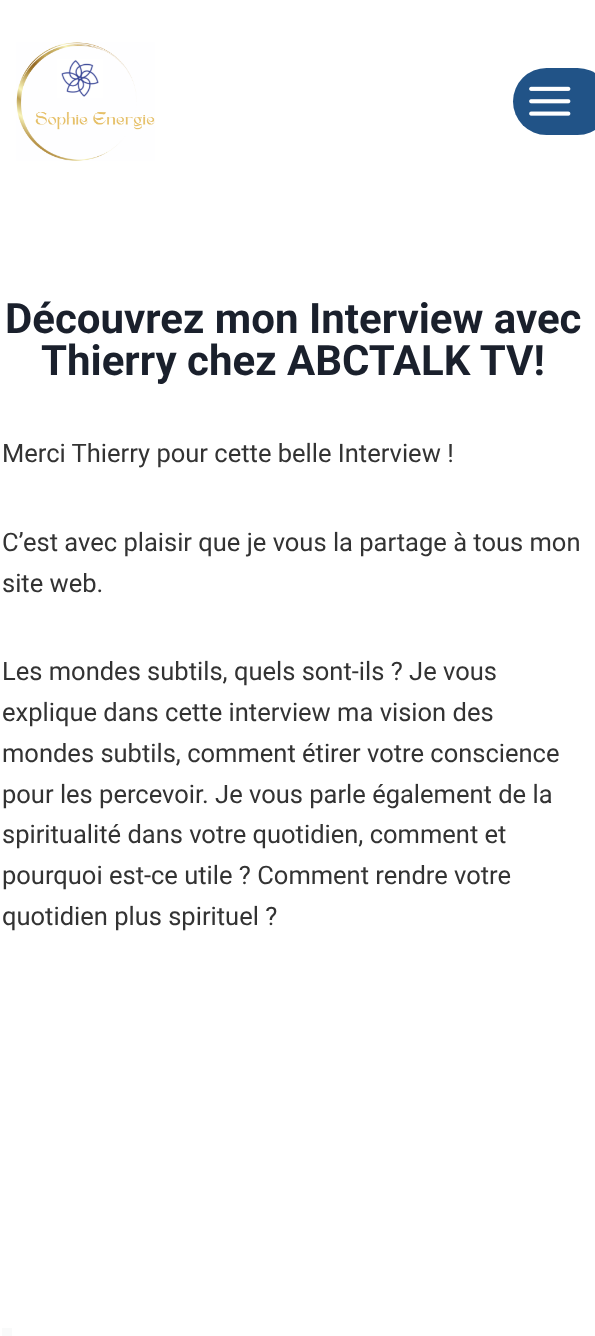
async function draw(canvas) {
  canvas.width = 595;
  canvas.height = 1336;
  const ctx = canvas.getContext('2d');
  ctx.miterLimit = 4;
  ctx.fontKerning = 'normal';
  function label(s, x, y, font, color) {
    ctx.font = font;
    ctx.fillStyle = color;
    ctx.fillText(s, x, y);
  }
  function rect(x, y, w, h, color) {
    ctx.fillStyle = color;
    ctx.fillRect(x, y, w, h);
  }
  function roundedRect(x, y, w, h, r, color) {
    ctx.fillStyle = color;
    ctx.beginPath();
    ctx.roundRect(x, y, w, h, r);
    ctx.fill();
  }
  async function image(src, x, y, w, h) {
    const img = new Image();
    img.src = src;
    await img.decode();
    ctx.drawImage(img, x, y, w, h);
  }

  rect(0, 0, 595, 1336, '#fff');
  await image('assets/img1.png', 16, 42, 139, 119);
  roundedRect(513, 68, 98, 67, 33.5, '#215387');
  await image('assets/img2.png', 529, 86, 42, 30);
  label('Découvrez mon Interview avec', 5, 333, 'bold 42px Roboto', '#1a202c');
  label('Thierry chez ABCTALK TV!', 41, 375, 'bold 42px Roboto', '#1a202c');
  label('Merci Thierry pour cette belle Interview !', 2, 462, '25.5px Roboto', '#333');
  label('C’est avec plaisir que je vous la partage à tous mon', 2, 551, '25.5px Roboto', '#333');
  label('site web.', 2, 592, '25.5px Roboto', '#333');
  label('Les mondes subtils, quels sont-ils ? Je vous', 2, 680, '25.5px Roboto', '#333');
  label('explique dans cette interview ma vision des', 2, 721, '25.5px Roboto', '#333');
  label('mondes subtils, comment étirer votre conscience', 2, 762, '25.5px Roboto', '#333');
  label('pour les percevoir. Je vous parle également de la', 2, 803, '25.5px Roboto', '#333');
  label('spiritualité dans votre quotidien, comment et', 2, 843, '25.5px Roboto', '#333');
  label('pourquoi est-ce utile ? Comment rendre votre', 2, 884, '25.5px Roboto', '#333');
  label('quotidien plus spirituel ?', 2, 925, '25.5px Roboto', '#333');
  rect(2, 1328, 10, 8, '#f9fafa');
}

draw(document.querySelector('canvas'));
